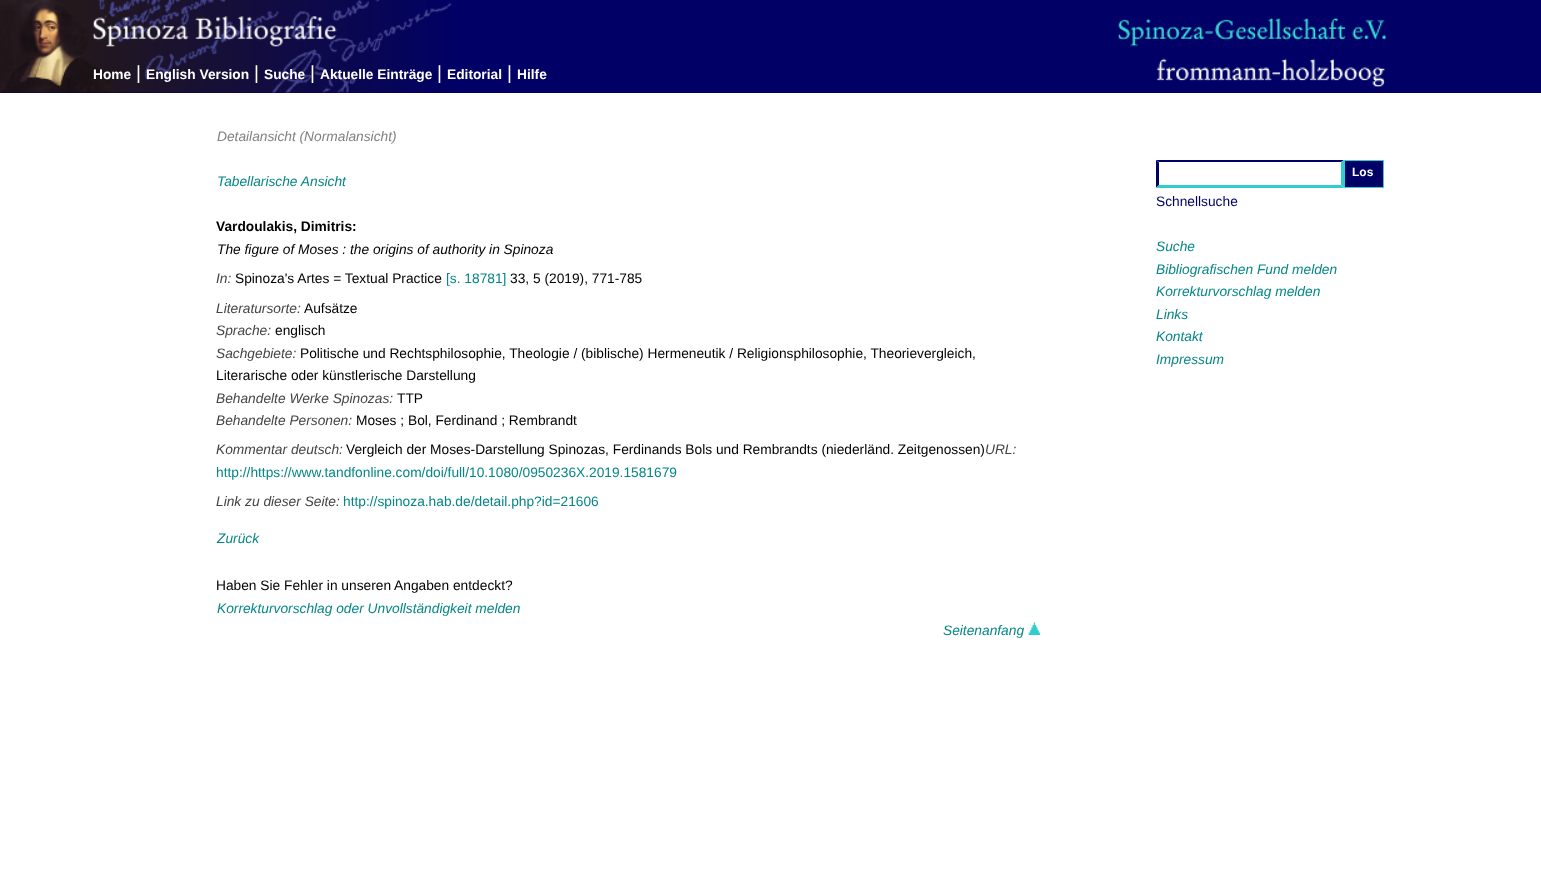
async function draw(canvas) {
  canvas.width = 1541;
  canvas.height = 895;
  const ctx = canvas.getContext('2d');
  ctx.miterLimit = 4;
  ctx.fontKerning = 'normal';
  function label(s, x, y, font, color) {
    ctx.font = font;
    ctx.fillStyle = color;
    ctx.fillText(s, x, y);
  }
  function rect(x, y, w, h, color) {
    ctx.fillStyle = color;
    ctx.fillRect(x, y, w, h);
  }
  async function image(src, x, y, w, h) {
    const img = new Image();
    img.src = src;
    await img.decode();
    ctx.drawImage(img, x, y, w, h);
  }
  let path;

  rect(0, 0, 1541, 895, '#fff');
  rect(0, 0, 1541, 93, '#006');
  await image('assets/img1.png', 0, 0, 452, 93);
  await image('assets/img2.png', 1118, 17, 269, 30);
  label('Home', 93, 79, 'bold 13.75px Liberation Sans', '#fff');
  label('|', 136, 79, '19px Liberation Sans', '#fff');
  label('English Version', 146, 79, 'bold 13.75px Liberation Sans', '#fff');
  label('|', 254, 79, '19px Liberation Sans', '#fff');
  label('Suche', 264, 79, 'bold 13.75px Liberation Sans', '#fff');
  label('|', 310, 79, '19px Liberation Sans', '#fff');
  label('Aktuelle Einträge', 320, 79, 'bold 13.75px Liberation Sans', '#fff');
  label('|', 437, 79, '19px Liberation Sans', '#fff');
  label('Editorial', 447, 79, 'bold 13.75px Liberation Sans', '#fff');
  label('|', 507, 79, '19px Liberation Sans', '#fff');
  label('Hilfe', 517, 79, 'bold 13.75px Liberation Sans', '#fff');
  await image('assets/img3.png', 1156, 58, 229, 30);
  label('Detailansicht (Normalansicht)', 217, 141, 'italic 13.75px Liberation Sans', '#808080');
  label('Tabellarische Ansicht', 217, 186, 'italic 13.75px Liberation Sans', '#068686');
  label('Vardoulakis, Dimitris:', 216, 231, 'bold 13.75px Liberation Sans', '#000');
  label('The figure of Moses : the origins of authority in Spinoza', 217, 254, 'italic 13.75px Liberation Sans', '#000');
  label('In:', 216, 283, 'italic 13.75px Liberation Sans', '#444');
  label('Spinoza\'s Artes = Textual Practice', 235, 283, '13.75px Liberation Sans', '#000');
  label('[s. 18781]', 446, 283, '13.75px Liberation Sans', '#068686');
  label('33, 5 (2019), 771-785', 510, 283, '13.75px Liberation Sans', '#000');
  label('Literatursorte:', 216, 313, 'italic 13.75px Liberation Sans', '#444');
  label('Aufsätze', 304, 313, '13.75px Liberation Sans', '#000');
  label('Sprache:', 216, 335, 'italic 13.75px Liberation Sans', '#444');
  label('englisch', 275, 335, '13.75px Liberation Sans', '#000');
  label('Sachgebiete:', 216, 358, 'italic 13.75px Liberation Sans', '#444');
  label('Politische und Rechtsphilosophie, Theologie / (biblische) Hermeneutik / Religionsphilosophie, Theorievergleich,', 300, 358, '13.75px Liberation Sans', '#000');
  label('Literarische oder künstlerische Darstellung', 216, 380, '13.75px Liberation Sans', '#000');
  label('Behandelte Werke Spinozas:', 216, 403, 'italic 13.75px Liberation Sans', '#444');
  label('TTP', 397, 403, '13.75px Liberation Sans', '#000');
  label('Behandelte Personen:', 216, 425, 'italic 13.75px Liberation Sans', '#444');
  label('Moses ; Bol, Ferdinand ; Rembrandt', 356, 425, '13.75px Liberation Sans', '#000');
  label('Kommentar deutsch:', 216, 454, 'italic 13.75px Liberation Sans', '#444');
  label('Vergleich der Moses-Darstellung Spinozas, Ferdinands Bols und Rembrandts (niederländ. Zeitgenossen)', 346, 454, '13.75px Liberation Sans', '#000');
  label('URL:', 985, 454, 'italic 13.75px Liberation Sans', '#444');
  label('http://https://www.tandfonline.com/doi/full/10.1080/0950236X.2019.1581679', 216, 477, '13.75px Liberation Sans', '#068686');
  label('Link zu dieser Seite:', 216, 506, 'italic 13.75px Liberation Sans', '#444');
  label('http://spinoza.hab.de/detail.php?id=21606', 343, 506, '13.75px Liberation Sans', '#068686');
  label('Zurück', 217, 543, 'italic 13.75px Liberation Sans', '#068686');
  label('Haben Sie Fehler in unseren Angaben entdeckt?', 216, 590, '13.75px Liberation Sans', '#000');
  label('Korrekturvorschlag oder Unvollständigkeit melden', 217, 613, 'italic 13.75px Liberation Sans', '#068686');
  label('Seitenanfang', 943, 635, 'italic 13.75px Liberation Sans', '#068686');
  await image('assets/img4.png', 1028, 622, 13, 13);
  ctx.fillStyle = '#006';
  path = new Path2D('M1156 160H1344L1341 162H1159Z');
  ctx.fill(path);
  ctx.fillStyle = '#3cc';
  path = new Path2D('M1344 160V187.5L1341 185V162.5Z');
  ctx.fill(path);
  path = new Path2D('M1344 188H1156L1159 185H1341Z');
  ctx.fill(path);
  ctx.fillStyle = '#006';
  path = new Path2D('M1156 187.5V160L1159 162.5V185Z');
  ctx.fill(path);
  ctx.beginPath();
  ctx.rect(1344.5, 160.5, 39, 27);
  ctx.fill();
  ctx.strokeStyle = '#3cc';
  ctx.stroke();
  label('Los', 1352, 176, 'bold 12px Liberation Sans', '#fff');
  label('Schnellsuche', 1156, 206, '13.75px Liberation Sans', '#006');
  label('Suche', 1156, 251, 'italic 13.75px Liberation Sans', '#068686');
  label('Bibliografischen Fund melden', 1156, 274, 'italic 13.75px Liberation Sans', '#068686');
  label('Korrekturvorschlag melden', 1156, 296, 'italic 13.75px Liberation Sans', '#068686');
  label('Links', 1156, 319, 'italic 13.75px Liberation Sans', '#068686');
  label('Kontakt', 1156, 341, 'italic 13.75px Liberation Sans', '#068686');
  label('Impressum', 1156, 364, 'italic 13.75px Liberation Sans', '#068686');
}

draw(document.querySelector('canvas'));
